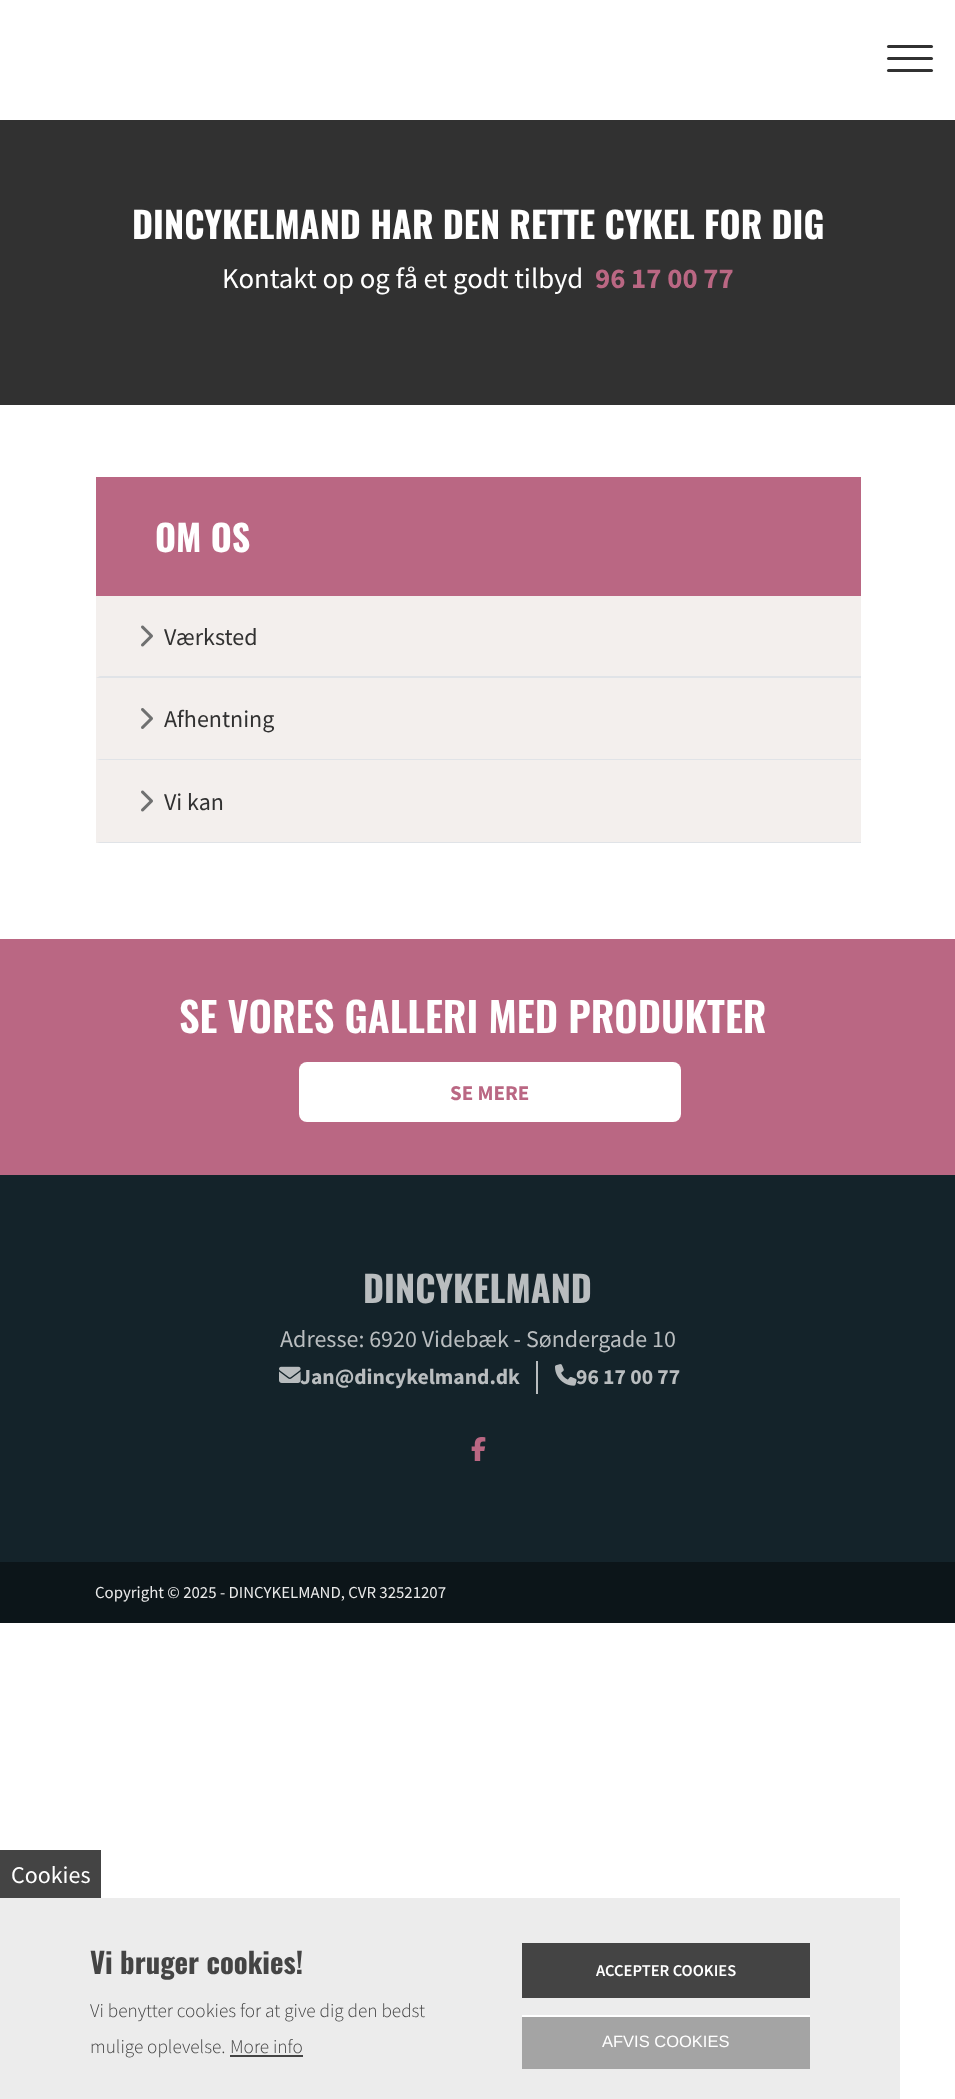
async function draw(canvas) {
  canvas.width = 955;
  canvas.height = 2099;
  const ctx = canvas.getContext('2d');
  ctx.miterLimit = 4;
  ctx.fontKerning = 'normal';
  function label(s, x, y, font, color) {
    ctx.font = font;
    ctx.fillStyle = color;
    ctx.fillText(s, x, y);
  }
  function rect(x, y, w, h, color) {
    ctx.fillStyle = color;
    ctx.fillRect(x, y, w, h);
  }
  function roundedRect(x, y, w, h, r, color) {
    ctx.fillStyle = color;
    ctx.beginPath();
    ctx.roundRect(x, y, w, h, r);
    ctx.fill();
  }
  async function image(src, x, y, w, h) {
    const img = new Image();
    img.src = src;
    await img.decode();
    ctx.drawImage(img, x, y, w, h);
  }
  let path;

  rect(0, 0, 955, 2099, '#fff');
  roundedRect(887, 57, 46, 3, 1.5, '#313131');
  roundedRect(887, 45, 46, 3, 1.5, '#313131');
  roundedRect(887, 69, 46, 3, 1.5, '#313131');
  rect(0, 120, 955, 285, '#313131');
  label('DINCYKELMAND HAR DEN RETTE CYKEL FOR DIG', 132, 239, 'bold 36px Oswald', '#fff');
  label('Kontakt op og få et godt tilbyd', 222, 288, '28.75px Source Sans Pro', '#fff');
  label('96 17 00 77', 595, 288, 'bold 28.75px Source Sans Pro', '#ba6783');
  rect(96, 477, 765, 119, '#ba6783');
  label('OM OS', 155, 552, 'bold 36px Oswald', '#fff');
  rect(96, 596, 765, 247, '#f3efed');
  ctx.fillStyle = '#e0e3e7';
  path = new Path2D('M861 678H96L100 676H861Z');
  ctx.fill(path);
  await image('assets/img1.png', 141, 625, 12, 22);
  label('Værksted', 164, 645, '24px Source Sans Pro', '#313131');
  ctx.fillStyle = '#e0e3e7';
  path = new Path2D('M861 760H96L100 759H861Z');
  ctx.fill(path);
  await image('assets/img2.png', 141, 708, 12, 21);
  label('Afhentning', 164, 727, '24px Source Sans Pro', '#313131');
  ctx.fillStyle = '#e0e3e7';
  path = new Path2D('M861 843H96L100 842H861Z');
  ctx.fill(path);
  await image('assets/img1.png', 141, 790, 12, 22);
  label('Vi kan', 164, 810, '24px Source Sans Pro', '#313131');
  rect(0, 939, 955, 236, '#ba6783');
  label('SE VORES GALLERI MED PRODUKTER', 179, 1033, '600 40.75px Oswald', '#fff');
  roundedRect(299, 1062, 382, 60, 8, '#fff');
  label('SE MERE', 450, 1100, 'bold 21px Source Sans Pro', '#ba6783');
  rect(0, 1175, 955, 387, '#14232a');
  label('DINCYKELMAND', 363, 1303, 'bold 36px Oswald', '#b9bdbf');
  label('Adresse: 6920 Videbæk - Søndergade 10', 280, 1347, '24px Source Sans Pro', '#b9bdbf');
  rect(536, 1361, 2, 33, '#b9bdbf');
  await image('assets/img3.png', 279, 1366, 22, 17);
  label('Jan@dincykelmand.dk', 300, 1384, 'bold 21.6px Source Sans Pro', '#b9bdbf');
  await image('assets/img4.png', 555, 1364, 22, 22);
  label('96 17 00 77', 576, 1384, 'bold 21.6px Source Sans Pro', '#b9bdbf');
  await image('assets/img5.png', 471, 1437, 15, 24);
  rect(0, 1562, 955, 61, '#0c1519');
  label('Copyright © 2025 - DINCYKELMAND, CVR 32521207', 95, 1598, '16.8px Source Sans Pro', '#eaeaea');
  rect(0, 1898, 900, 201, '#ececec');
  rect(0, 1850, 101, 48, '#444');
  label('Cookies', 11, 1883, '24px Source Sans Pro', '#fff');
  label('Vi bruger cookies!', 90, 1974, 'bold 28.75px Oswald', '#444');
  label('Vi benytter cookies for at give dig den bedst', 90, 2017, '300 19.25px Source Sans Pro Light', '#444');
  label('mulige oplevelse.', 90, 2053, '300 19.25px Source Sans Pro Light', '#444');
  label('More info', 230, 2053, '300 19.25px Source Sans Pro Light', '#444');
  rect(230, 2055, 73, 2, '#444');
  rect(522, 1943, 288, 55, '#444');
  label('ACCEPTER COOKIES', 596, 1976, '600 16.5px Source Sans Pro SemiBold', '#fff');
  rect(522, 2017, 288, 52, '#a4a4a4');
  rect(522, 2015, 288, 2, '#fff');
  label('AFVIS COOKIES', 602, 2047, '16.5px Liberation Sans', '#fff');
}

draw(document.querySelector('canvas'));
